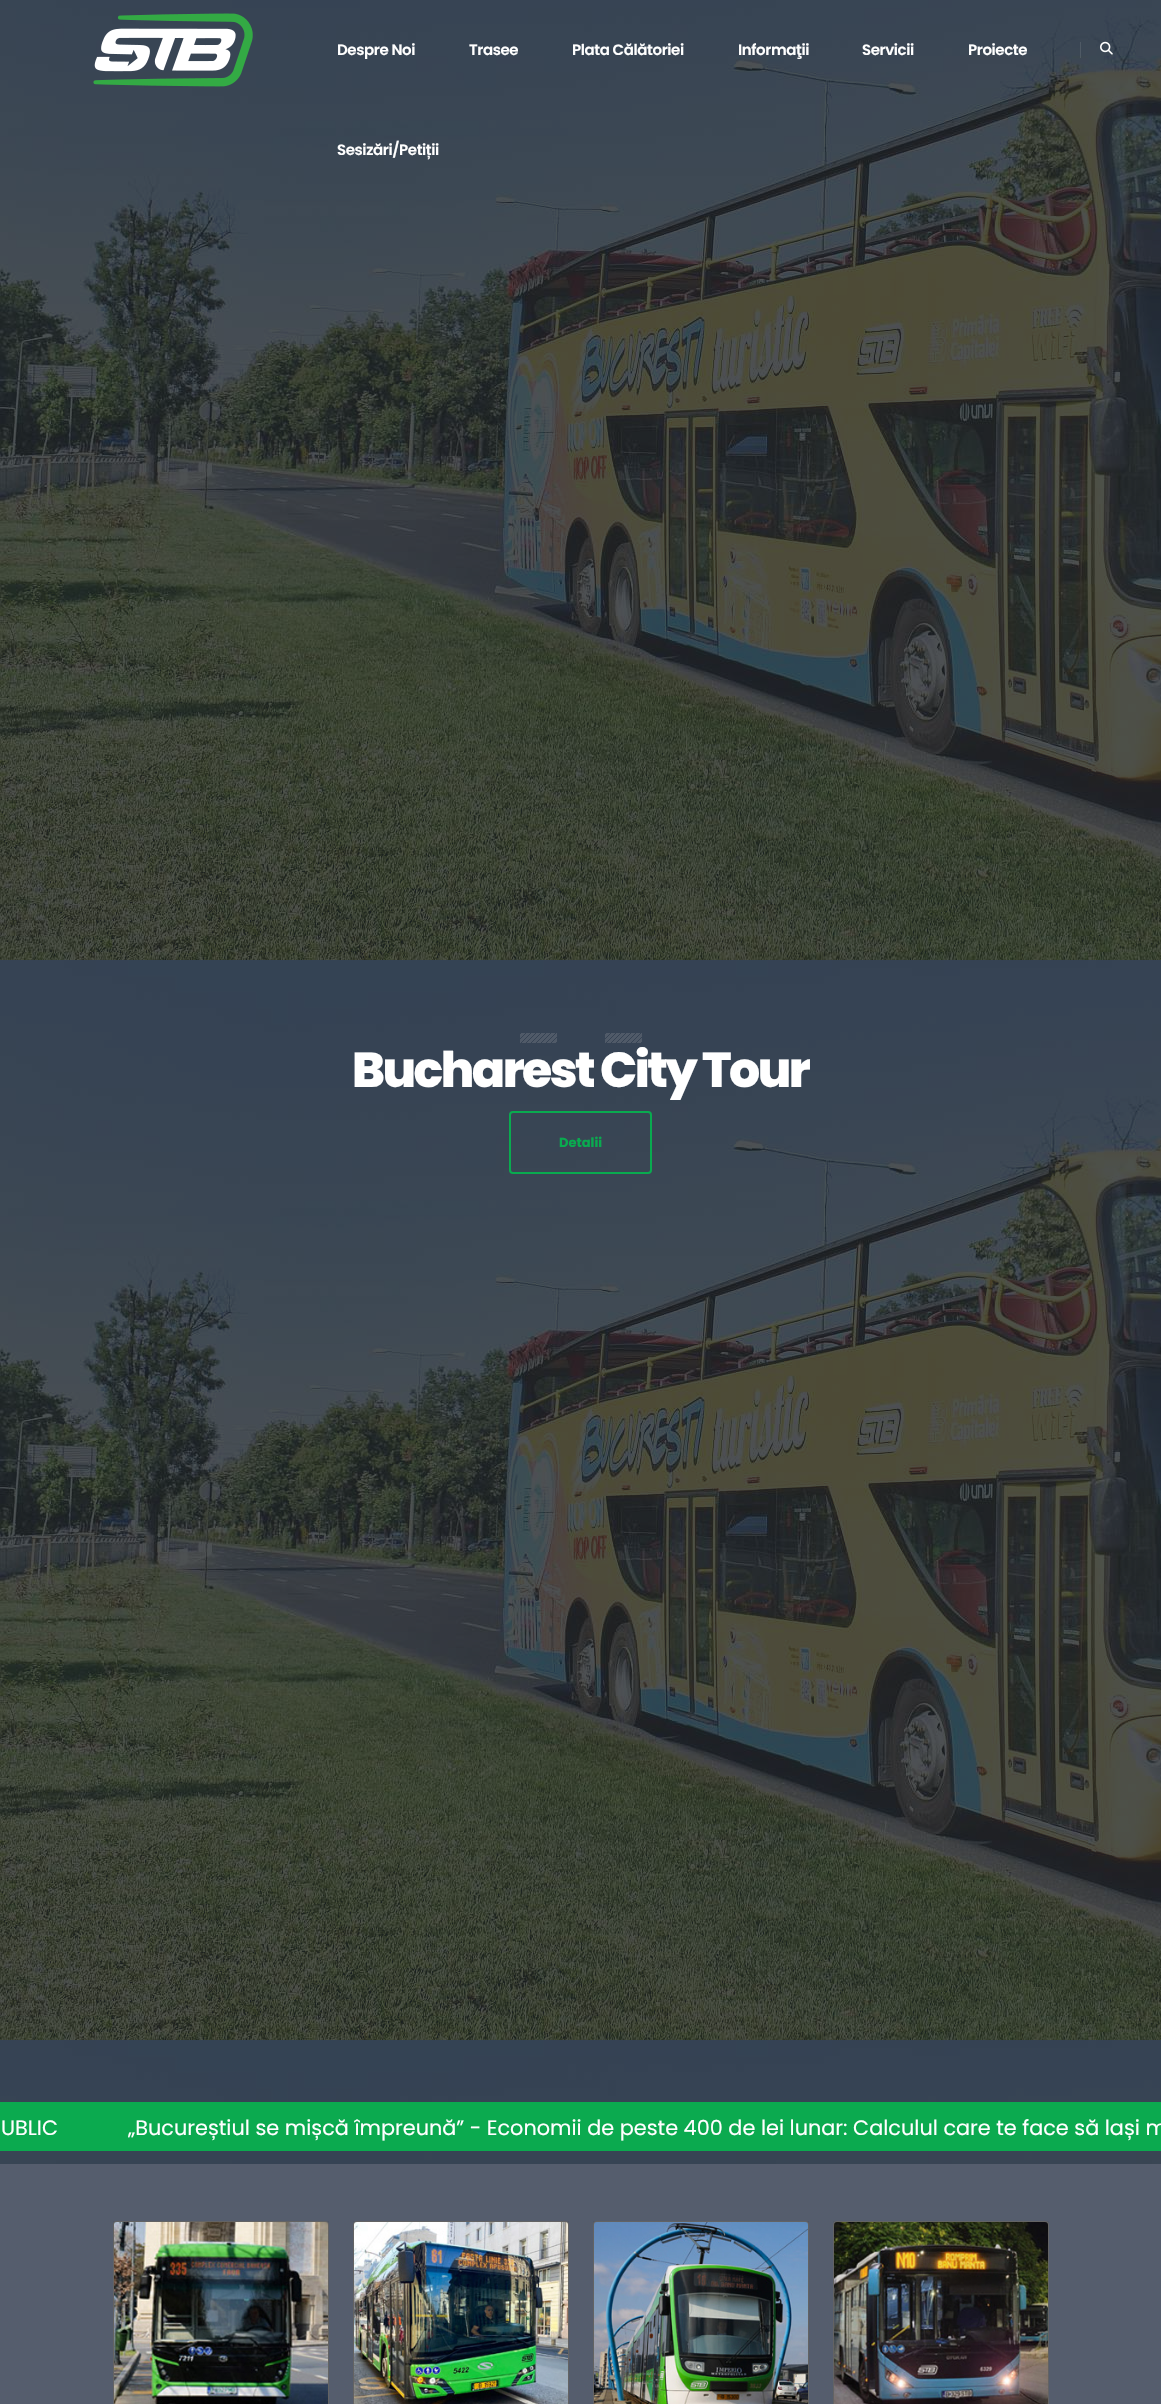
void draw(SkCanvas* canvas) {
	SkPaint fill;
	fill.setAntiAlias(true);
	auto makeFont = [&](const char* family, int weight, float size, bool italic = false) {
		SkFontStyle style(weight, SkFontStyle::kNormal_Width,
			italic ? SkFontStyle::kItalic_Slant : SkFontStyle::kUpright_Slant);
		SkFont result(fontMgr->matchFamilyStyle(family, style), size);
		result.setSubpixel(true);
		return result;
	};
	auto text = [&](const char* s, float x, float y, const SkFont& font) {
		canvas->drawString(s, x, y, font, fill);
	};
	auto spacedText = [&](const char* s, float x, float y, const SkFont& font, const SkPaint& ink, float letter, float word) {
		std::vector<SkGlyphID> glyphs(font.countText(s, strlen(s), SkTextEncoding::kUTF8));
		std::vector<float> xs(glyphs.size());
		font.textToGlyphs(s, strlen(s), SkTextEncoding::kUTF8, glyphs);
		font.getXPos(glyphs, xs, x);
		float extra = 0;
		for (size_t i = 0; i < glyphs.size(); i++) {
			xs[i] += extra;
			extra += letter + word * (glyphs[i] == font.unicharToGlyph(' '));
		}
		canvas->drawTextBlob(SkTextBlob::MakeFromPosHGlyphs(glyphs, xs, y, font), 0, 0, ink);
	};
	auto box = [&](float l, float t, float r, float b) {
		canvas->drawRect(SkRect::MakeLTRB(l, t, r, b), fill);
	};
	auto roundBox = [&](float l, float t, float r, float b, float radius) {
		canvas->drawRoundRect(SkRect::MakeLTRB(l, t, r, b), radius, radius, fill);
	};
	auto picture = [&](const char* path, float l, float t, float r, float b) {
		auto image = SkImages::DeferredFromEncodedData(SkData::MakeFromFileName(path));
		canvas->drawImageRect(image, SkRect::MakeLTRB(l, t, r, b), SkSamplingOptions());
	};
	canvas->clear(0xFF555D6D);
	picture("image2.png", 0, 0, 1161, 2164);
	picture("image0.png", 93, 13, 253, 87);
	fill.setColor(0x1AFFFFFF);
	box(1080, 42, 1081, 58);
	picture("image1.png", 1100, 41, 1113, 55);
	picture("image3.png", 520, 1033, 557, 1043);
	picture("image3.png", 605, 1033, 642, 1043);
	fill.setStyle(SkPaint::kStroke_Style);
	fill.setStrokeWidth(2);
	fill.setColor(0xFF09AB4F);
	canvas->drawRoundRect(SkRect::MakeLTRB(510, 1112, 651, 1173), 3, 3, fill);
	fill.setStyle(SkPaint::kFill_Style);
	fill.setColor(0xFA09AB4F);
	box(0, 2102, 1161, 2151);
	fill.setColor(0xFF696969);
	roundBox(113, 2221, 329, 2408, 4);
	fill.setStyle(SkPaint::kStroke_Style);
	fill.setStrokeWidth(1);
	fill.setColor(0x0F000000);
	canvas->drawRect(SkRect::MakeLTRB(113.5f, 2221.5f, 328.5f, 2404.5f), fill);
	picture("image4.png", 114, 2222, 328, 2404);
	fill.setStyle(SkPaint::kFill_Style);
	fill.setColor(0xFF696969);
	roundBox(353, 2221, 569, 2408, 4);
	fill.setStyle(SkPaint::kStroke_Style);
	fill.setColor(0x0F000000);
	canvas->drawRect(SkRect::MakeLTRB(353.5f, 2221.5f, 568.5f, 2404.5f), fill);
	picture("image5.png", 354, 2222, 568, 2404);
	fill.setStyle(SkPaint::kFill_Style);
	fill.setColor(0xFF696969);
	roundBox(593, 2221, 809, 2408, 4);
	fill.setStyle(SkPaint::kStroke_Style);
	fill.setColor(0x0F000000);
	canvas->drawRect(SkRect::MakeLTRB(593.5f, 2221.5f, 808.5f, 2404.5f), fill);
	picture("image6.png", 594, 2222, 808, 2404);
	fill.setStyle(SkPaint::kFill_Style);
	fill.setColor(0xFF696969);
	roundBox(833, 2221, 1049, 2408, 4);
	fill.setStyle(SkPaint::kStroke_Style);
	fill.setColor(0x0F000000);
	canvas->drawRect(SkRect::MakeLTRB(833.5f, 2221.5f, 1048.5f, 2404.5f), fill);
	picture("image7.png", 834, 2222, 1048, 2404);
	auto font1 = makeFont("Poppins", 600, 15);
	fill.setStyle(SkPaint::kFill_Style);
	fill.setColor(0xFFFFFFFF);
	spacedText("Despre Noi", 337, 55, font1, fill, -0.4f, 0);
	spacedText("Trasee", 469, 55, font1, fill, -0.4f, 0);
	spacedText("Plata Călătoriei", 572, 55, font1, fill, -0.4f, 0);
	spacedText("Informaţii", 738, 55, font1, fill, -0.4f, 0);
	spacedText("Servicii", 862, 55, font1, fill, -0.4f, 0);
	spacedText("Proiecte", 968, 55, font1, fill, -0.4f, 0);
	spacedText("Sesizări/Petiții", 337, 155, font1, fill, -0.4f, 0);
	auto font2 = makeFont("Poppins", 800, 49);
	spacedText("Bucharest City Tour", 352, 1087, font2, fill, -2.5f, 0);
	auto font3 = makeFont("Poppins", 700, 13);
	fill.setColor(0xFF09AB4F);
	text("Detalii", 559, 1147, font3);
	auto font4 = makeFont("Poppins", 400, 20.8f);
	fill.setColor(0xFFFFFFFF);
	text("UBLIC", 1, 2135, font4);
	text("„Bucureștiul se mișcă împreună” - Economii de peste 400 de lei lunar: Calculul care te face să lași m", 128, 2135, font4);
}
